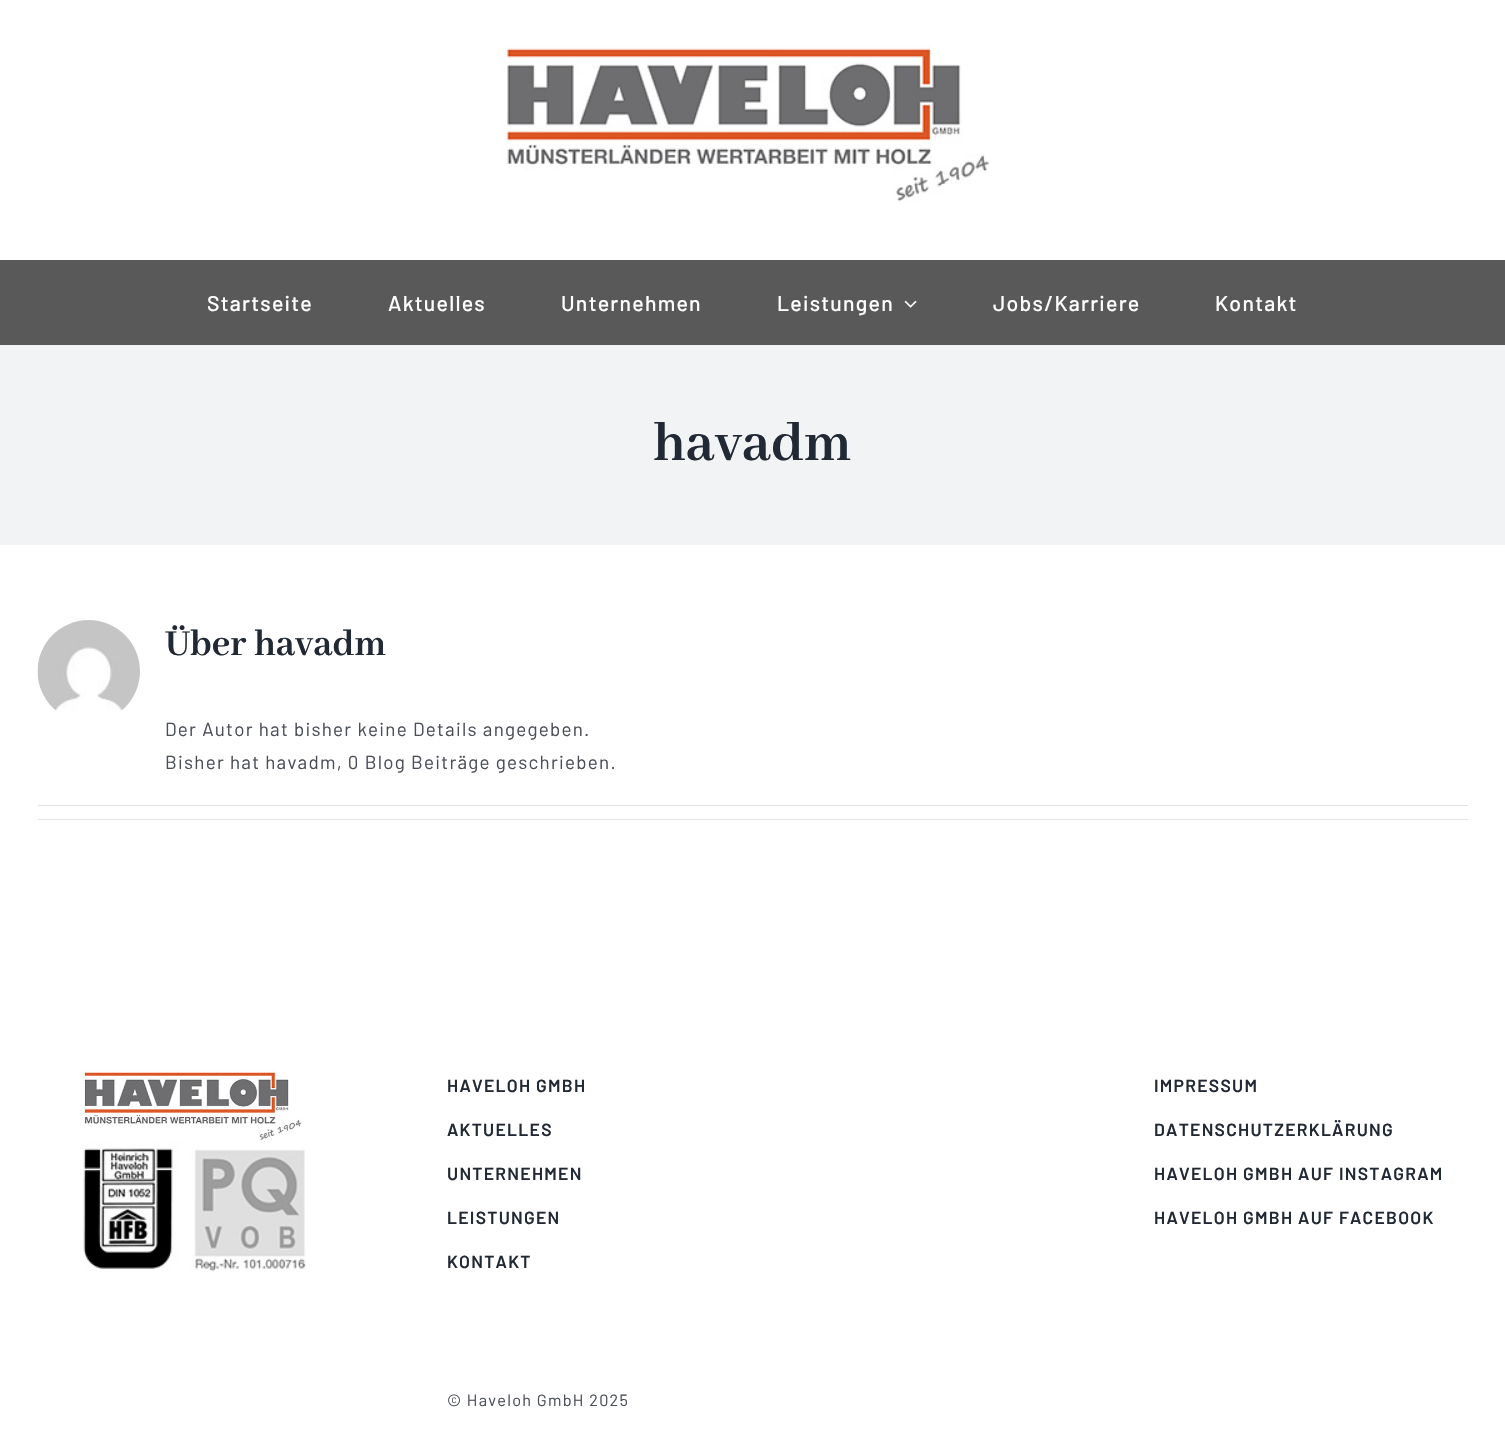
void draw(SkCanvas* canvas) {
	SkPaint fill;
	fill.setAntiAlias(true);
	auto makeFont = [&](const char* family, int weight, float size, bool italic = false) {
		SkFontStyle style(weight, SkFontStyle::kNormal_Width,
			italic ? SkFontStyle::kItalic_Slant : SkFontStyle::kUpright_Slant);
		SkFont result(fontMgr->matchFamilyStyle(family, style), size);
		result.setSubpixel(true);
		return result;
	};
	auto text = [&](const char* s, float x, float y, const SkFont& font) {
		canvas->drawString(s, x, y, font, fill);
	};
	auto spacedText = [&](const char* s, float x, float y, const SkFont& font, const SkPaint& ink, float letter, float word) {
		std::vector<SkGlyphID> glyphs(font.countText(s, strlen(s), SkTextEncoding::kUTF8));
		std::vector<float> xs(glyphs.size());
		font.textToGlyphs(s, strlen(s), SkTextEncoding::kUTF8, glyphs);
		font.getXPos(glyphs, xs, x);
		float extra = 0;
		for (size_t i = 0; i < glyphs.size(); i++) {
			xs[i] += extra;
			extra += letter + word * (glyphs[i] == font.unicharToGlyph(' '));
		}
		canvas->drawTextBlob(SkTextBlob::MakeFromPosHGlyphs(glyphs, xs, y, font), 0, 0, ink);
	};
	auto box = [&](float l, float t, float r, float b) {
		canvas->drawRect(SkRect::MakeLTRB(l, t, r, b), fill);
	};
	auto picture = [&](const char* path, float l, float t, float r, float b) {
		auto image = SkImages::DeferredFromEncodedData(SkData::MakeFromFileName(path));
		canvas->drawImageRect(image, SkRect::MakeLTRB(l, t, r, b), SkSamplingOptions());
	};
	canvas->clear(0xFFFFFFFF);
	picture("image0.png", 502, 44, 989, 202);
	fill.setColor(0xFF595959);
	box(0, 260, 1505, 345);
	picture("image1.png", 904, 300, 917, 308);
	fill.setColor(0xFFF2F3F5);
	box(0, 345, 1505, 545);
	picture("image2.png", 37, 620, 140, 711);
	fill.setColor(0xFFE2E2E2);
	box(38, 805, 1468, 806);
	box(38, 819, 1468, 820);
	picture("image3.png", 82, 1070, 302, 1140);
	picture("image4.png", 83, 1141, 306, 1272);
	auto font1 = makeFont("Barlow", 500, 21.25f);
	fill.setColor(0xFFFFFFFF);
	spacedText("Startseite", 207, 311, font1, fill, 1.25f, 0);
	spacedText("Aktuelles", 388, 311, font1, fill, 1.25f, 0);
	spacedText("Unternehmen", 561, 311, font1, fill, 1.25f, 0);
	spacedText("Leistungen", 777, 311, font1, fill, 1.25f, 0);
	spacedText("Jobs/Karriere", 993, 311, font1, fill, 1.25f, 0);
	spacedText("Kontakt", 1215, 311, font1, fill, 1.25f, 0);
	auto font2 = makeFont("Abhaya Libre", 700, 60);
	fill.setColor(0xFF212934);
	text("havadm", 653, 460, font2);
	auto font3 = makeFont("Abhaya Libre", 700, 40);
	text("Über havadm", 165, 655, font3);
	auto font4 = makeFont("Barlow", 400, 18.75f);
	fill.setColor(0xFF4A4E57);
	spacedText("Der Autor hat bisher keine Details angegeben.", 165, 736, font4, fill, 1.25f, 0);
	spacedText("Bisher hat havadm, 0 Blog Beiträge geschrieben.", 165, 769, font4, fill, 1.25f, 0);
	auto font5 = makeFont("Barlow", 600, 17.5f);
	fill.setColor(0xFF212934);
	spacedText("HAVELOH GMBH", 447, 1092, font5, fill, 1.25f, 0);
	spacedText("AKTUELLES", 447, 1136, font5, fill, 1.25f, 0);
	spacedText("UNTERNEHMEN", 447, 1180, font5, fill, 1.25f, 0);
	spacedText("LEISTUNGEN", 447, 1224, font5, fill, 1.25f, 0);
	spacedText("KONTAKT", 447, 1268, font5, fill, 1.25f, 0);
	spacedText("IMPRESSUM", 1154, 1092, font5, fill, 1.25f, 0);
	spacedText("DATENSCHUTZERKLÄRUNG", 1154, 1136, font5, fill, 1.25f, 0);
	spacedText("HAVELOH GMBH AUF INSTAGRAM", 1154, 1180, font5, fill, 1.25f, 0);
	spacedText("HAVELOH GMBH AUF FACEBOOK", 1154, 1224, font5, fill, 1.25f, 0);
	auto font6 = makeFont("Barlow", 400, 16.25f);
	fill.setColor(0xFF4A4E57);
	spacedText("© Haveloh GmbH 2025", 447, 1406, font6, fill, 1.25f, 0);
}
